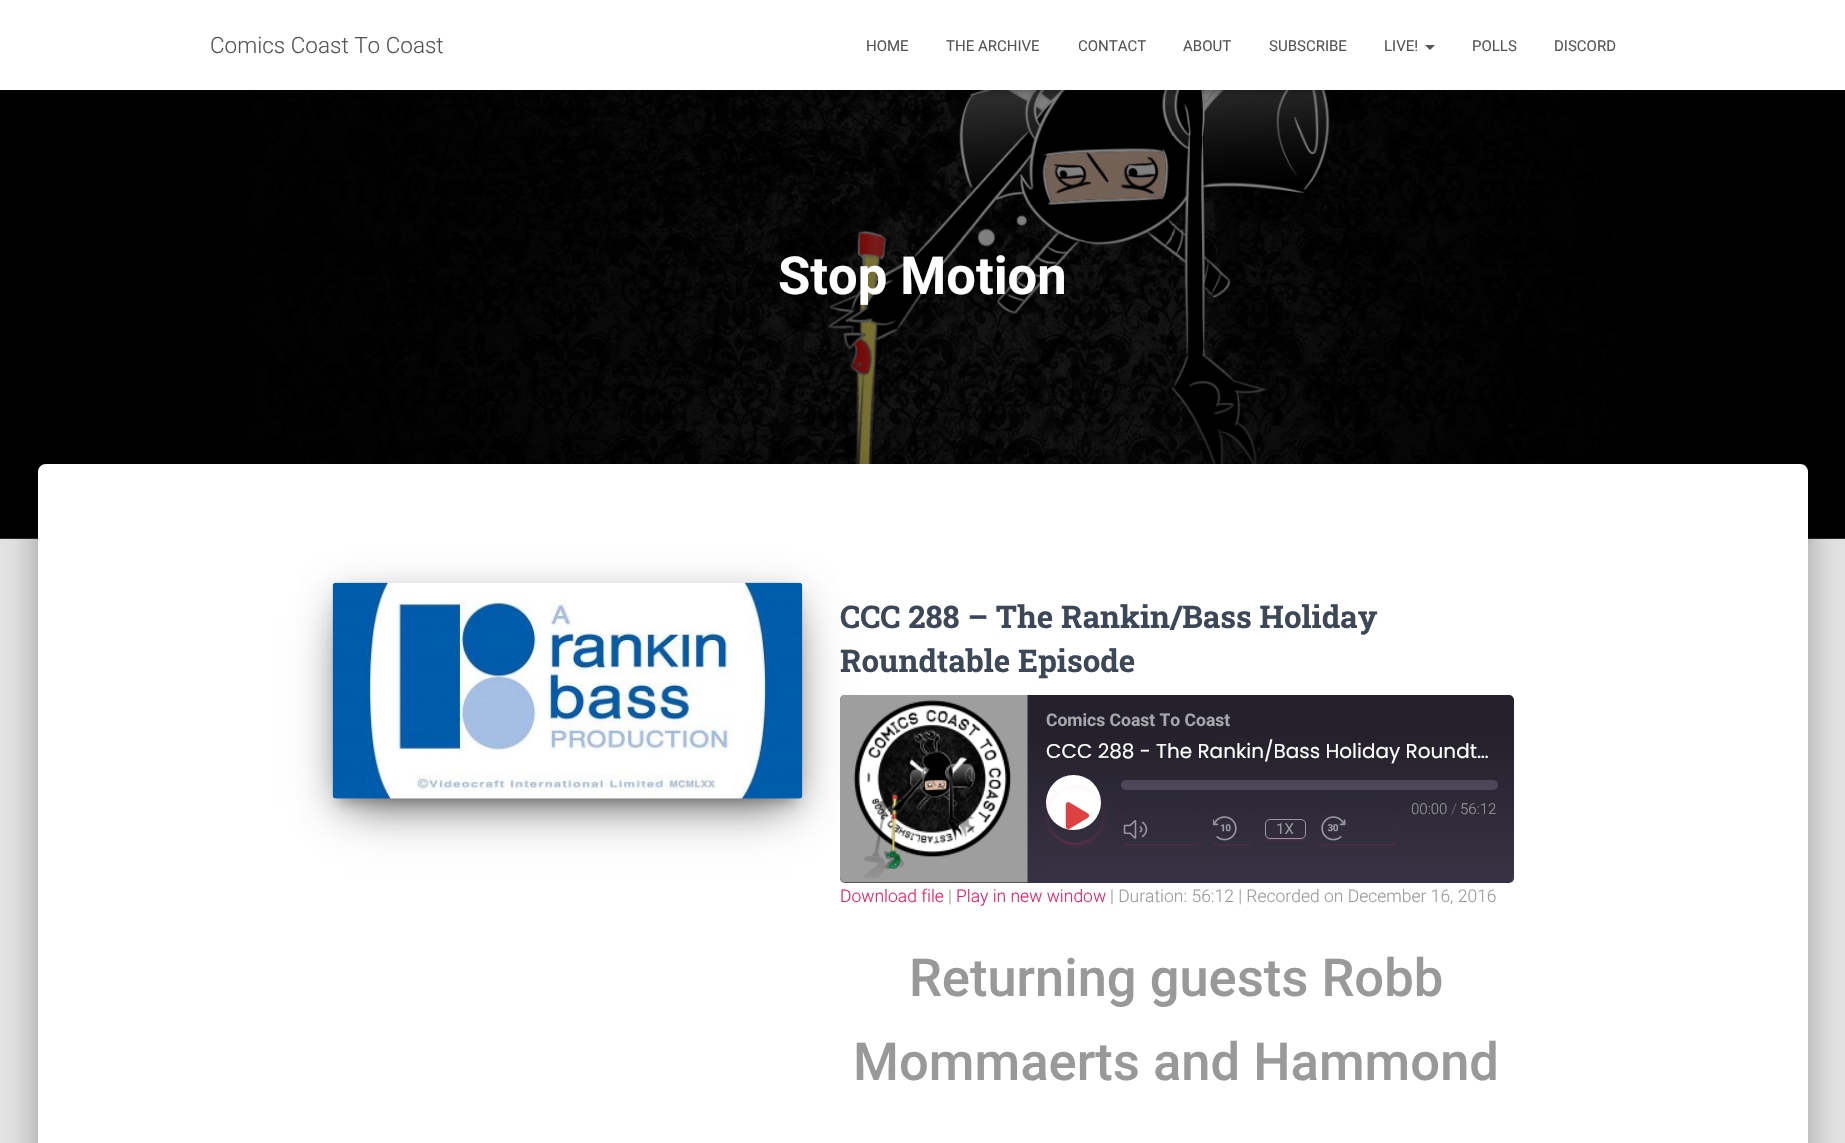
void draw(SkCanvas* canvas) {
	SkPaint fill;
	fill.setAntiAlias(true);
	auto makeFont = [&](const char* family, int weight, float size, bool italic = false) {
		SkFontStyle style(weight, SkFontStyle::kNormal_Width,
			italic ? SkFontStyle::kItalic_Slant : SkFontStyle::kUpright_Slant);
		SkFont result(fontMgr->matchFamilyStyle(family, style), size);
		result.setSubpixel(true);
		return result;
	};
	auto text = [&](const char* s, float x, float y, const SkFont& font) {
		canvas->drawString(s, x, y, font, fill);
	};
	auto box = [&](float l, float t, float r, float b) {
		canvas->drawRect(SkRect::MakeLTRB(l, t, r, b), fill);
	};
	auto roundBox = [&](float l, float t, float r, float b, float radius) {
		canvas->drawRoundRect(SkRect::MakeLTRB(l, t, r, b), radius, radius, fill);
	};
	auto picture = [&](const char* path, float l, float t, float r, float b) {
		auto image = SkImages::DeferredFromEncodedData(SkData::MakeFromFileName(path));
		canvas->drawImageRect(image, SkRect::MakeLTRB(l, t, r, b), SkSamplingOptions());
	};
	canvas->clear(0xFFE5E5E5);
	picture("image0.png", 0, 90, 1845, 539);
	fill.setColor(0x1A000000);
	fill.setMaskFilter(SkMaskFilter::MakeBlur(kNormal_SkBlurStyle, 3));
	canvas->drawRect(SkRect::MakeLTRB(3, 8, 1843, 93), fill);
	fill.setMaskFilter(nullptr);
	fill.setColor(0x1F000000);
	fill.setMaskFilter(SkMaskFilter::MakeBlur(kNormal_SkBlurStyle, 6));
	canvas->drawRect(SkRect::MakeLTRB(0, 1, 1845, 91), fill);
	fill.setMaskFilter(nullptr);
	fill.setColor(0x6B000000);
	fill.setMaskFilter(SkMaskFilter::MakeBlur(kNormal_SkBlurStyle, 6));
	canvas->drawRect(SkRect::MakeLTRB(8, 9, 1838, 84), fill);
	fill.setMaskFilter(nullptr);
	fill.setColor(0xFFFFFFFF);
	box(0, 0, 1845, 90);
	fill.setColor(0xFF555555);
	canvas->drawPath(SkPathBuilder().moveTo(1425, 45).lineTo(1435, 45).lineTo(1430, 50).close().detach(), fill);
	fill.setColor(0x33000000);
	fill.setMaskFilter(SkMaskFilter::MakeBlur(kNormal_SkBlurStyle, 6));
	canvas->drawRoundRect(SkRect::MakeLTRB(44, 480, 1801, 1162), 1, 1, fill);
	fill.setMaskFilter(nullptr);
	fill.setColor(0x1F000000);
	fill.setMaskFilter(SkMaskFilter::MakeBlur(kNormal_SkBlurStyle, 19));
	canvas->drawRoundRect(SkRect::MakeLTRB(31, 465, 1814, 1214), 14, 14, fill);
	fill.setMaskFilter(nullptr);
	fill.setColor(0x24000000);
	fill.setMaskFilter(SkMaskFilter::MakeBlur(kNormal_SkBlurStyle, 15));
	canvas->drawRoundRect(SkRect::MakeLTRB(35, 481, 1810, 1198), 10, 10, fill);
	fill.setMaskFilter(nullptr);
	fill.setColor(0xFFFFFFFF);
	canvas->drawPath(SkPathBuilder().moveTo(46, 464).lineTo(1800, 464).cubicTo(1804.5f, 464, 1808, 467.5f, 1808, 472).lineTo(1808, 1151).lineTo(38, 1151).lineTo(38, 472).cubicTo(38, 467.5f, 41.5f, 464, 46, 464).close().detach(), fill);
	fill.setColor(0x33000000);
	fill.setMaskFilter(SkMaskFilter::MakeBlur(kNormal_SkBlurStyle, 6));
	canvas->drawRect(SkRect::MakeLTRB(339, 599, 796, 803), fill);
	fill.setMaskFilter(nullptr);
	fill.setColor(0x1F000000);
	fill.setMaskFilter(SkMaskFilter::MakeBlur(kNormal_SkBlurStyle, 15.5f));
	canvas->drawRoundRect(SkRect::MakeLTRB(333, 588, 803, 804), 4, 4, fill);
	fill.setMaskFilter(nullptr);
	fill.setColor(0x8F000000);
	fill.setMaskFilter(SkMaskFilter::MakeBlur(kNormal_SkBlurStyle, 24));
	canvas->drawRect(SkRect::MakeLTRB(348, 618, 788, 804), fill);
	fill.setMaskFilter(nullptr);
	picture("image1.png", 332, 582, 803, 799);
	{
		const SkColor colors[] = {0xFF383344, 0xFF24212C};
		const float stops[] = {0.01f, 0.78f};
		const SkPoint ends[] = {{1177, 884}, {1176, 693}};
		fill.setShader(SkGradientShader::MakeLinear(ends, colors, stops, 2, SkTileMode::kClamp));
		fill.setAlpha(255);
	}
	roundBox(840, 695, 1514, 883, 5);
	picture("image2.png", 840, 695, 1028, 883);
	fill.setShader(nullptr);
	fill.setColor(0xFFFFFFFF);
	canvas->drawCircle(1073.5f, 802.5f, 27.5f, fill);
	canvas->save();
	canvas->clipPath(SkPathBuilder(SkPathFillType::kEvenOdd).moveTo(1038, 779).lineTo(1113, 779).lineTo(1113, 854).lineTo(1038, 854).close().moveTo(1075.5f, 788).cubicTo(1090.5f, 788, 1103, 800.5f, 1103, 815.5f).cubicTo(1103, 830.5f, 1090.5f, 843, 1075.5f, 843).cubicTo(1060.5f, 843, 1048, 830.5f, 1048, 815.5f).cubicTo(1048, 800.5f, 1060.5f, 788, 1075.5f, 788).close().detach(), true);
	fill.setColor(0x1FE91E63);
	fill.setMaskFilter(SkMaskFilter::MakeBlur(kNormal_SkBlurStyle, 3));
	canvas->drawRoundRect(SkRect::MakeLTRB(1048, 789, 1103, 844), 27.5f, 27.5f, fill);
	fill.setMaskFilter(nullptr);
	canvas->restore();
	canvas->save();
	canvas->clipPath(SkPathBuilder(SkPathFillType::kEvenOdd).moveTo(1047, 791).lineTo(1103, 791).lineTo(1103, 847).lineTo(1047, 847).close().moveTo(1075.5f, 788).cubicTo(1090.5f, 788, 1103, 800.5f, 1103, 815.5f).cubicTo(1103, 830.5f, 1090.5f, 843, 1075.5f, 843).cubicTo(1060.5f, 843, 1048, 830.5f, 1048, 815.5f).cubicTo(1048, 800.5f, 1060.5f, 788, 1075.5f, 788).close().detach(), true);
	fill.setColor(0x33E91E63);
	fill.setMaskFilter(SkMaskFilter::MakeBlur(kNormal_SkBlurStyle, 0.5f));
	canvas->drawRoundRect(SkRect::MakeLTRB(1050, 794, 1100, 844), 25, 25, fill);
	fill.setMaskFilter(nullptr);
	canvas->restore();
	canvas->save();
	canvas->clipPath(SkPathBuilder(SkPathFillType::kEvenOdd).moveTo(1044, 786).lineTo(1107, 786).lineTo(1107, 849).lineTo(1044, 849).close().moveTo(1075.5f, 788).cubicTo(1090.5f, 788, 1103, 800.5f, 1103, 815.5f).cubicTo(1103, 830.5f, 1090.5f, 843, 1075.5f, 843).cubicTo(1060.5f, 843, 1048, 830.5f, 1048, 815.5f).cubicTo(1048, 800.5f, 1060.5f, 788, 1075.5f, 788).close().detach(), true);
	fill.setColor(0x24E91E63);
	fill.setMaskFilter(SkMaskFilter::MakeBlur(kNormal_SkBlurStyle, 1));
	canvas->drawRoundRect(SkRect::MakeLTRB(1048, 790, 1103, 845), 27.5f, 27.5f, fill);
	fill.setMaskFilter(nullptr);
	canvas->restore();
	picture("image3.png", 1065, 802, 1090, 830);
	fill.setColor(0xFF4C4659);
	roundBox(1121, 780, 1498, 790, 5);
	canvas->save();
	canvas->clipPath(SkPathBuilder(SkPathFillType::kEvenOdd).moveTo(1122, 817).lineTo(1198, 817).lineTo(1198, 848).lineTo(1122, 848).close().moveTo(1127, 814).lineTo(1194, 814).cubicTo(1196, 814, 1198, 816, 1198, 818).lineTo(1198, 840).cubicTo(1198, 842, 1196, 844, 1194, 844).lineTo(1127, 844).cubicTo(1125, 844, 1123, 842, 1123, 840).lineTo(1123, 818).cubicTo(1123, 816, 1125, 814, 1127, 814).close().detach(), true);
	fill.setColor(0x338E2651);
	fill.setMaskFilter(SkMaskFilter::MakeBlur(kNormal_SkBlurStyle, 0.5f));
	canvas->drawRoundRect(SkRect::MakeLTRB(1125, 820, 1195, 845), 1, 1, fill);
	fill.setMaskFilter(nullptr);
	canvas->restore();
	canvas->save();
	canvas->clipPath(SkPathBuilder(SkPathFillType::kEvenOdd).moveTo(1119, 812).lineTo(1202, 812).lineTo(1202, 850).lineTo(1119, 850).close().moveTo(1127, 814).lineTo(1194, 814).cubicTo(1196, 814, 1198, 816, 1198, 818).lineTo(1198, 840).cubicTo(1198, 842, 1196, 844, 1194, 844).lineTo(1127, 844).cubicTo(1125, 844, 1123, 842, 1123, 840).lineTo(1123, 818).cubicTo(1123, 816, 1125, 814, 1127, 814).close().detach(), true);
	fill.setColor(0x12E91E63);
	fill.setMaskFilter(SkMaskFilter::MakeBlur(kNormal_SkBlurStyle, 1));
	canvas->drawRoundRect(SkRect::MakeLTRB(1123, 816, 1198, 846), 4, 4, fill);
	fill.setMaskFilter(nullptr);
	canvas->restore();
	picture("image4.png", 1123, 820, 1148, 839);
	canvas->save();
	canvas->clipPath(SkPathBuilder(SkPathFillType::kEvenOdd).moveTo(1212, 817).lineTo(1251, 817).lineTo(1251, 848).lineTo(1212, 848).close().moveTo(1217, 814).lineTo(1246, 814).cubicTo(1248, 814, 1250, 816, 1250, 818).lineTo(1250, 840).cubicTo(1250, 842, 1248, 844, 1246, 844).lineTo(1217, 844).cubicTo(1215, 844, 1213, 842, 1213, 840).lineTo(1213, 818).cubicTo(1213, 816, 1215, 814, 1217, 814).close().detach(), true);
	fill.setColor(0x338E2651);
	fill.setMaskFilter(SkMaskFilter::MakeBlur(kNormal_SkBlurStyle, 0.5f));
	canvas->drawRoundRect(SkRect::MakeLTRB(1215, 820, 1248, 845), 1, 1, fill);
	fill.setMaskFilter(nullptr);
	canvas->restore();
	canvas->save();
	canvas->clipPath(SkPathBuilder(SkPathFillType::kEvenOdd).moveTo(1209, 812).lineTo(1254, 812).lineTo(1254, 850).lineTo(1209, 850).close().moveTo(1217, 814).lineTo(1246, 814).cubicTo(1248, 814, 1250, 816, 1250, 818).lineTo(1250, 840).cubicTo(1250, 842, 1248, 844, 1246, 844).lineTo(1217, 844).cubicTo(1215, 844, 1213, 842, 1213, 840).lineTo(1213, 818).cubicTo(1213, 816, 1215, 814, 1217, 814).close().detach(), true);
	fill.setColor(0x12E91E63);
	fill.setMaskFilter(SkMaskFilter::MakeBlur(kNormal_SkBlurStyle, 1));
	canvas->drawRoundRect(SkRect::MakeLTRB(1213, 816, 1250, 846), 4, 4, fill);
	fill.setMaskFilter(nullptr);
	canvas->restore();
	picture("image5.png", 1213, 816, 1237, 841);
	canvas->save();
	canvas->clipPath(SkPathBuilder(SkPathFillType::kEvenOdd).moveTo(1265, 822).lineTo(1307, 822).lineTo(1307, 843).lineTo(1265, 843).close().moveTo(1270, 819).lineTo(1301, 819).cubicTo(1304, 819, 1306, 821, 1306, 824).lineTo(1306, 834).cubicTo(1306, 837, 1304, 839, 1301, 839).lineTo(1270, 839).cubicTo(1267, 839, 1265, 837, 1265, 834).lineTo(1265, 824).cubicTo(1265, 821, 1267, 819, 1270, 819).close().detach(), true);
	fill.setColor(0x338E2650);
	fill.setMaskFilter(SkMaskFilter::MakeBlur(kNormal_SkBlurStyle, 0.5f));
	canvas->drawRoundRect(SkRect::MakeLTRB(1268, 825, 1304, 840), 2.5f, 2.5f, fill);
	fill.setMaskFilter(nullptr);
	canvas->restore();
	canvas->save();
	canvas->clipPath(SkPathBuilder(SkPathFillType::kEvenOdd).moveTo(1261, 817).lineTo(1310, 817).lineTo(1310, 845).lineTo(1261, 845).close().moveTo(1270, 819).lineTo(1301, 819).cubicTo(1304, 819, 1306, 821, 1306, 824).lineTo(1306, 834).cubicTo(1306, 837, 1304, 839, 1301, 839).lineTo(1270, 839).cubicTo(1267, 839, 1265, 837, 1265, 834).lineTo(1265, 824).cubicTo(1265, 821, 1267, 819, 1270, 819).close().detach(), true);
	fill.setColor(0x12E91E63);
	fill.setMaskFilter(SkMaskFilter::MakeBlur(kNormal_SkBlurStyle, 1));
	canvas->drawRoundRect(SkRect::MakeLTRB(1265, 821, 1306, 841), 5, 5, fill);
	fill.setMaskFilter(nullptr);
	canvas->restore();
	fill.setStyle(SkPaint::kStroke_Style);
	fill.setStrokeWidth(1);
	fill.setColor(0x80FFFFFF);
	canvas->drawRoundRect(SkRect::MakeLTRB(1265.5f, 819.5f, 1305.5f, 838.5f), 4.5f, 4.5f, fill);
	canvas->save();
	canvas->clipPath(SkPathBuilder(SkPathFillType::kEvenOdd).moveTo(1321, 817).lineTo(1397, 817).lineTo(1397, 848).lineTo(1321, 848).close().moveTo(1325, 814).lineTo(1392, 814).cubicTo(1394, 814, 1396, 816, 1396, 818).lineTo(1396, 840).cubicTo(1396, 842, 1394, 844, 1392, 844).lineTo(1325, 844).cubicTo(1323, 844, 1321, 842, 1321, 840).lineTo(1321, 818).cubicTo(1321, 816, 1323, 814, 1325, 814).close().detach(), true);
	fill.setStyle(SkPaint::kFill_Style);
	fill.setColor(0x338E2651);
	fill.setMaskFilter(SkMaskFilter::MakeBlur(kNormal_SkBlurStyle, 0.5f));
	canvas->drawRoundRect(SkRect::MakeLTRB(1324, 820, 1394, 845), 1, 1, fill);
	fill.setMaskFilter(nullptr);
	canvas->restore();
	canvas->save();
	canvas->clipPath(SkPathBuilder(SkPathFillType::kEvenOdd).moveTo(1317, 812).lineTo(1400, 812).lineTo(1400, 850).lineTo(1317, 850).close().moveTo(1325, 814).lineTo(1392, 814).cubicTo(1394, 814, 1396, 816, 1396, 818).lineTo(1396, 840).cubicTo(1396, 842, 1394, 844, 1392, 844).lineTo(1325, 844).cubicTo(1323, 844, 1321, 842, 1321, 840).lineTo(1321, 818).cubicTo(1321, 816, 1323, 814, 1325, 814).close().detach(), true);
	fill.setColor(0x12E91E63);
	fill.setMaskFilter(SkMaskFilter::MakeBlur(kNormal_SkBlurStyle, 1));
	canvas->drawRoundRect(SkRect::MakeLTRB(1321, 816, 1396, 846), 4, 4, fill);
	fill.setMaskFilter(nullptr);
	canvas->restore();
	picture("image6.png", 1321, 816, 1346, 841);
	auto font1 = makeFont("Roboto", 300, 22.5f);
	fill.setColor(0xFF555555);
	text("Comics Coast To Coast", 210, 53, font1);
	auto font2 = makeFont("Roboto", 400, 15);
	text("HOME", 866, 51, font2);
	text("THE ARCHIVE", 946, 51, font2);
	text("CONTACT", 1078, 51, font2);
	text("ABOUT", 1183, 51, font2);
	text("SUBSCRIBE", 1269, 51, font2);
	text("LIVE!", 1384, 51, font2);
	text("POLLS", 1472, 51, font2);
	text("DISCORD", 1554, 51, font2);
	auto font3 = makeFont("Roboto", 700, 52.5f);
	fill.setColor(0xFFFFFFFF);
	text("Stop Motion", 778, 294, font3);
	auto font4 = makeFont("Roboto Slab", 700, 31.25f);
	fill.setColor(0xFF3C4858);
	text("CCC 288 – The Rankin/Bass Holiday", 840, 628, font4);
	text("Roundtable Episode", 840, 672, font4);
	auto font5 = makeFont("Roboto", 700, 17.5f);
	fill.setColor(0xFFA7A6AB);
	text("Comics Coast To Coast", 1046, 726, font5);
	auto font6 = makeFont("Poppins", 400, 20);
	fill.setColor(0xFFFFFFFF);
	text("CCC 288 - The Rankin/Bass Holiday Roundt…", 1046, 758, font6);
	auto font7 = makeFont("Roboto", 300, 15);
	fill.setColor(0xFF999999);
	text("00:00", 1411, 814, font7);
	fill.setColor(0xFF6D6A74);
	text("/", 1451, 814, font7);
	fill.setColor(0xFF999999);
	text("56:12", 1460, 814, font7);
	text("1X", 1276, 834, font2);
	auto font8 = makeFont("Roboto", 300, 17.5f);
	fill.setColor(0xFFE91E63);
	text("Download file", 840, 902, font8);
	fill.setColor(0xFF999999);
	text("|", 948, 902, font8);
	fill.setColor(0xFFE91E63);
	text("Play in new window", 956, 902, font8);
	fill.setColor(0xFF999999);
	text("| Duration: 56:12 | Recorded on December 16, 2016", 1110, 902, font8);
	auto font9 = makeFont("Roboto", 500, 52.5f);
	text("Returning guests Robb", 909, 996, font9);
	text("Mommaerts and Hammond", 853, 1080, font9);
}
